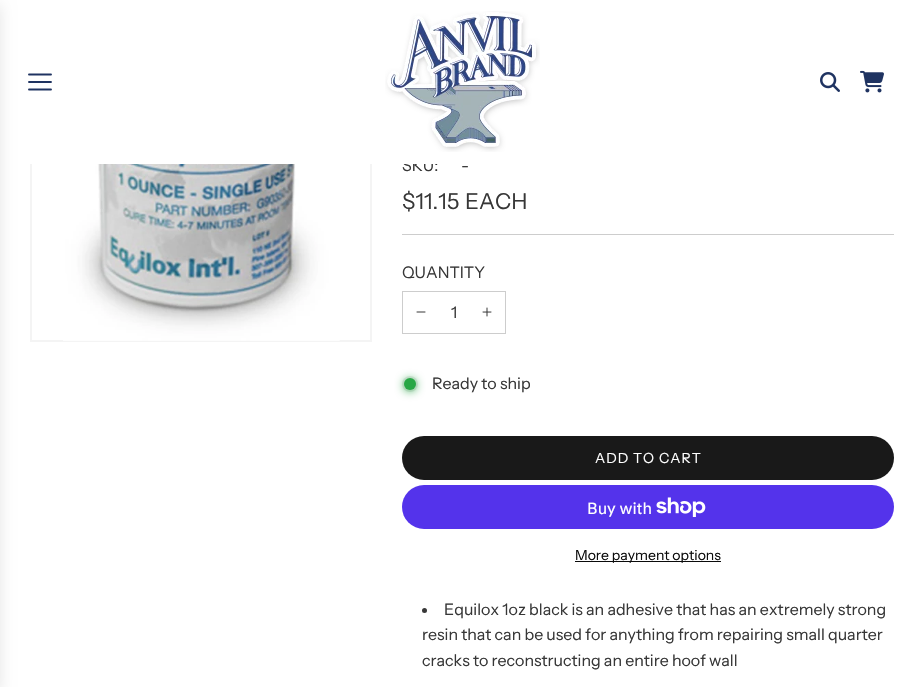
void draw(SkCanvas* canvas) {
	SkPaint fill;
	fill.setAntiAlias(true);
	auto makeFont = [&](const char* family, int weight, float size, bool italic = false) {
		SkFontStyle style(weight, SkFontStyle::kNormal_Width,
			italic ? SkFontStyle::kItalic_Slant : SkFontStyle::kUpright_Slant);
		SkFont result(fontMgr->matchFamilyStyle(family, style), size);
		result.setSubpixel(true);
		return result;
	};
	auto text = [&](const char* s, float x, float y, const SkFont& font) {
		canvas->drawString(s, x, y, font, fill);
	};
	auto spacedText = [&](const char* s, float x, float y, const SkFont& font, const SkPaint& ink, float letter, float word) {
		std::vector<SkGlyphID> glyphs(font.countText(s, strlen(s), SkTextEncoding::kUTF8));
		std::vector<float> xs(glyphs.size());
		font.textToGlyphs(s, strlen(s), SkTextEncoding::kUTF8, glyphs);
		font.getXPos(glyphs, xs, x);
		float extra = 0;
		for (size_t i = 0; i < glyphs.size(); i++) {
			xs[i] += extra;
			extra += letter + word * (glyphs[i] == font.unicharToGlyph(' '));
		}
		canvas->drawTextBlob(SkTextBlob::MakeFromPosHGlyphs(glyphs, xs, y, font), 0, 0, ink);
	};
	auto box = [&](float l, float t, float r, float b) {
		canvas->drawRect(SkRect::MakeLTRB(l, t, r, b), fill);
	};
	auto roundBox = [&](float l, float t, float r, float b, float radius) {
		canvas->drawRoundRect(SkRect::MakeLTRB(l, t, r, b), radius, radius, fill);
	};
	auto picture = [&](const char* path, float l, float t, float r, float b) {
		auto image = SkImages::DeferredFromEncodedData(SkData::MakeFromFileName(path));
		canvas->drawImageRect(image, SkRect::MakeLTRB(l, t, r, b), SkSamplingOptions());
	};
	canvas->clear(0xFFFFFFFF);
	fill.setColor(0x1A000000);
	fill.setMaskFilter(SkMaskFilter::MakeBlur(kNormal_SkBlurStyle, 7.5f));
	canvas->drawRect(SkRect::MakeLTRB(-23, 5, 0, 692), fill);
	fill.setMaskFilter(nullptr);
	picture("image1.png", 820, 72, 840, 92);
	picture("image2.png", 860, 70, 884, 93);
	fill.setStyle(SkPaint::kStroke_Style);
	fill.setStrokeWidth(2);
	fill.setColor(0xFFF4F4F4);
	canvas->drawRect(SkRect::MakeLTRB(31, -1, 371, 341), fill);
	picture("image3.png", 63, 164, 340, 341);
	fill.setStyle(SkPaint::kFill_Style);
	fill.setColor(0xFFCDCDCD);
	box(402, 234, 894, 235);
	fill.setStyle(SkPaint::kStroke_Style);
	fill.setStrokeWidth(1);
	canvas->drawRect(SkRect::MakeLTRB(402.5f, 291.5f, 505.5f, 333.5f), fill);
	fill.setStrokeCap(SkPaint::kRound_Cap);
	fill.setStrokeJoin(SkPaint::kRound_Join);
	fill.setColor(0xFF373737);
	canvas->drawPath(SkPathBuilder().moveTo(417, 312).lineTo(425, 312).detach(), fill);
	picture("image4.png", 482, 307, 492, 317);
	fill.setStyle(SkPaint::kFill_Style);
	fill.setColor(0xFFEBEBEB);
	canvas->drawCircle(410, 384, 8, fill);
	fill.setColor(0xFF28A745);
	fill.setMaskFilter(SkMaskFilter::MakeBlur(kNormal_SkBlurStyle, 5));
	canvas->drawRoundRect(SkRect::MakeLTRB(404, 379, 416, 391), 6, 6, fill);
	fill.setMaskFilter(nullptr);
	canvas->drawCircle(410, 384, 6, fill);
	fill.setColor(0xFF191919);
	roundBox(402, 436, 894, 480, 22);
	fill.setColor(0xFF5433EB);
	roundBox(402, 485, 894, 529, 22);
	picture("image5.png", 656, 497, 706, 517);
	fill.setColor(0xFF0A0A0A);
	box(575, 561, 721, 562);
	fill.setColor(0xFF373737);
	canvas->drawCircle(424.5f, 610.5f, 2.5f, fill);
	auto font1 = makeFont("Instrument Sans", 400, 16);
	text("SKU:", 402, 171, font1);
	fill.setColor(0xFFFFFFFF);
	box(30, 0, 438, 164);
	fill.setStyle(SkPaint::kStroke_Style);
	fill.setStrokeWidth(1.9f);
	fill.setColor(0xFF1F3361);
	canvas->drawPath(SkPathBuilder().moveTo(29, 74.5f).lineTo(51, 74.5f).moveTo(29, 82).lineTo(51, 82).moveTo(29, 89.5f).lineTo(51, 89.5f).detach(), fill);
	picture("image0.png", 385, 11, 540, 152);
	fill.setStyle(SkPaint::kFill_Style);
	fill.setColor(0xFF373737);
	text("-", 461, 171, font1);
	auto font2 = makeFont("Instrument Sans", 400, 22);
	text("$11.15", 402, 209, font2);
	text("EACH", 465, 209, font2);
	text("QUANTITY", 402, 278, font1);
	text("1", 451, 318, font1);
	text("Ready to ship", 432, 389, font1);
	auto font3 = makeFont("Instrument Sans", 400, 14);
	fill.setColor(0xFFFFFFFF);
	spacedText("ADD TO CART", 595, 463, font3, fill, 1, 0);
	auto font4 = makeFont("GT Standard", 400, 16);
	text("Buy with", 587, 514, font4);
	fill.setColor(0xFF0A0A0A);
	text("More payment options", 575, 560, font3);
	fill.setColor(0xFF373737);
	text("Equilox 1oz black is an adhesive that has an extremely strong", 444, 615, font1);
	text("resin that can be used for anything from repairing small quarter", 422, 640, font1);
	text("cracks to reconstructing an entire hoof wall", 422, 666, font1);
}
